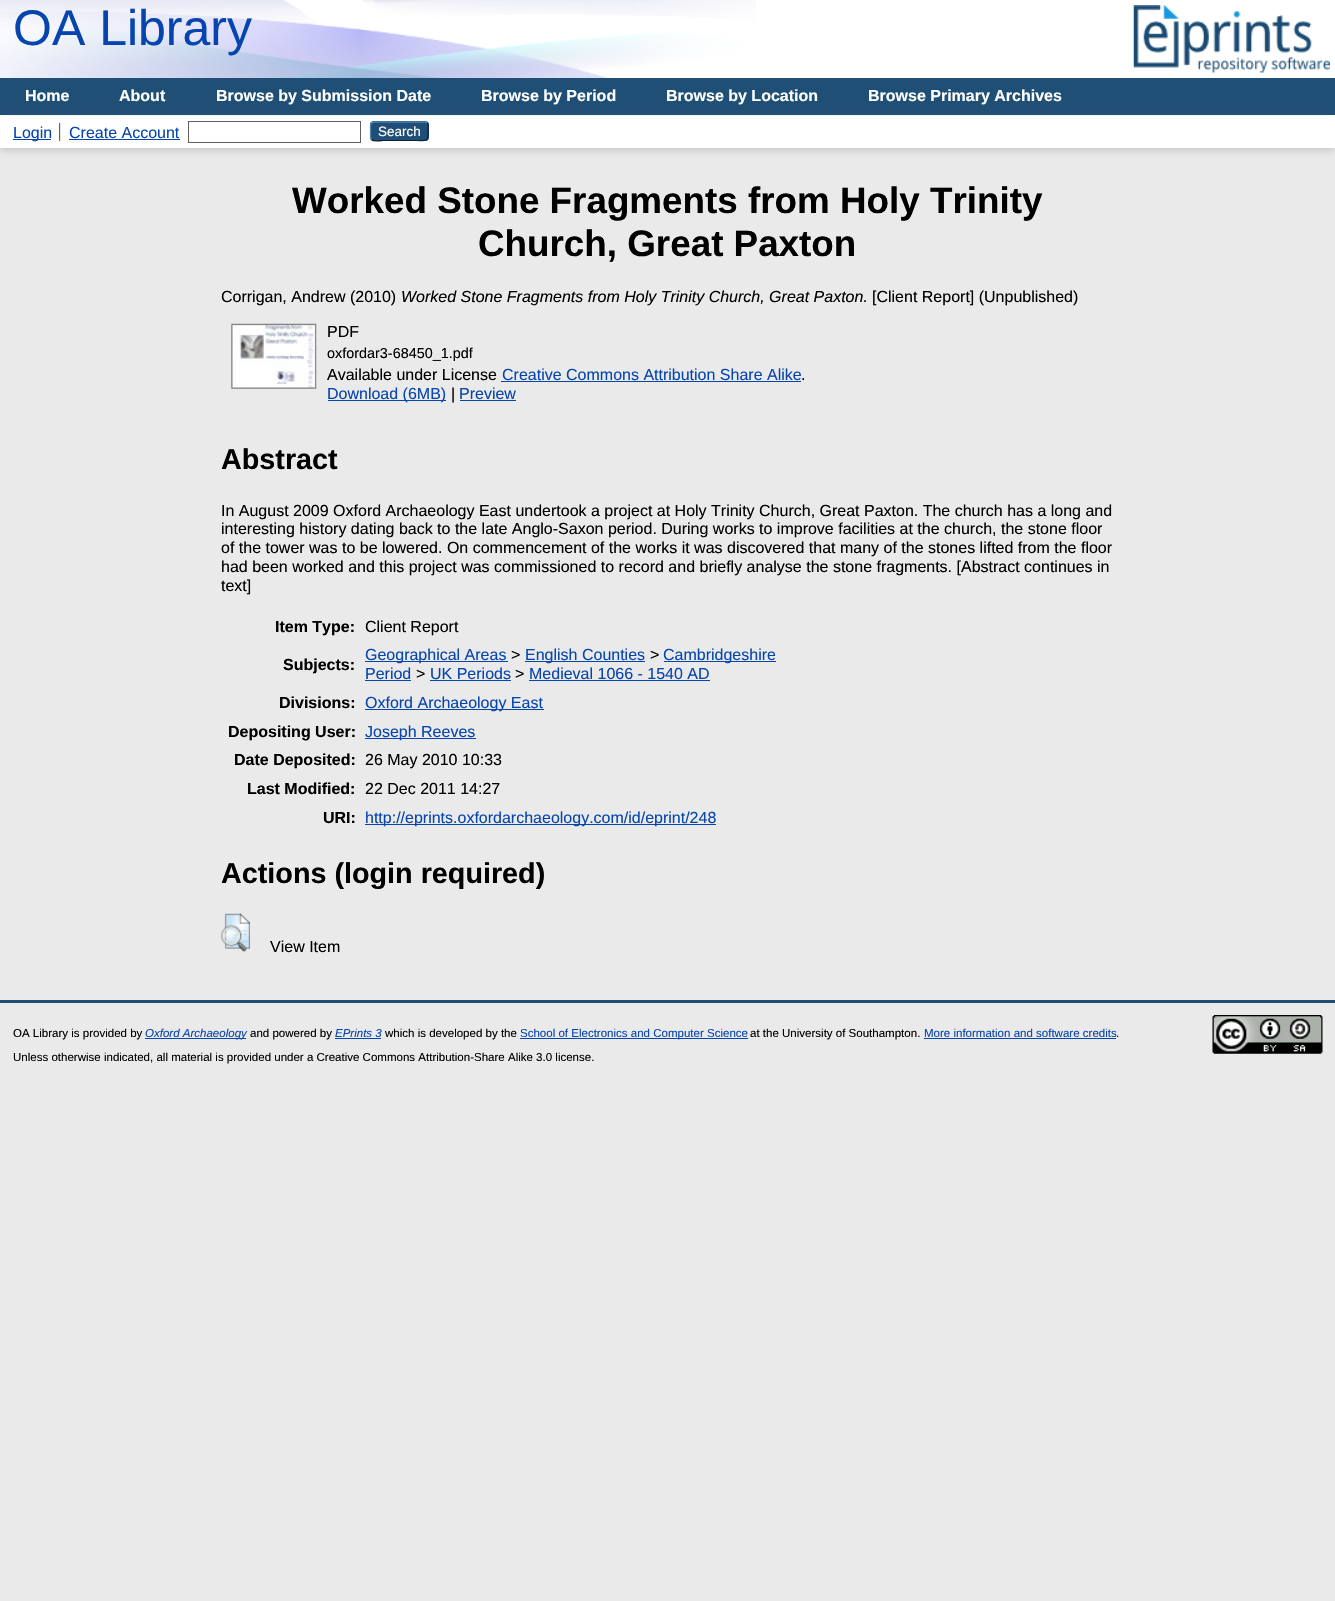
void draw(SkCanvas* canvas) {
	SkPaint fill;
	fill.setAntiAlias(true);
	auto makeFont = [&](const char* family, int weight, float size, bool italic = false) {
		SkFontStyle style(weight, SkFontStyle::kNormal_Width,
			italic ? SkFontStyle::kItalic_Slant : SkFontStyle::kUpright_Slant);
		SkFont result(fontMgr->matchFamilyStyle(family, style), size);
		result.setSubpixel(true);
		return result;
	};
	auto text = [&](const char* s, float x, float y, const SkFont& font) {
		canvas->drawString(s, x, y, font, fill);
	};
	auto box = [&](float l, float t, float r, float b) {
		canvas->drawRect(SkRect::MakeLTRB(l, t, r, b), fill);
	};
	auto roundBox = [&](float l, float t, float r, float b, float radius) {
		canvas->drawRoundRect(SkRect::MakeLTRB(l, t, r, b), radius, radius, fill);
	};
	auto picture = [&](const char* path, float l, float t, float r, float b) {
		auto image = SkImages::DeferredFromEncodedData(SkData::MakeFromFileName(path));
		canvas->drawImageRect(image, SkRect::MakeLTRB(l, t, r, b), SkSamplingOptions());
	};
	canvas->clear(0xFFEAEAEA);
	fill.setColor(0xFFFFFFFF);
	box(0, 0, 1335, 78);
	picture("image0.png", 0, 0, 756, 78);
	picture("image1.png", 1133, 5, 1330, 73);
	fill.setColor(0xFF204F76);
	box(0, 78, 1335, 115);
	fill.setColor(0xFFFFFFFF);
	box(0, 115, 1335, 116);
	fill.setColor(0x4D646464);
	fill.setMaskFilter(SkMaskFilter::MakeBlur(kNormal_SkBlurStyle, 4));
	canvas->drawRect(SkRect::MakeLTRB(0, 119, 1335, 150), fill);
	fill.setMaskFilter(nullptr);
	fill.setColor(0xFFFFFFFF);
	box(0, 116, 1335, 148);
	fill.setColor(0xFF606060);
	box(59, 123, 60, 141);
	fill.setColor(0xFF0645AD);
	box(13, 139, 51, 140);
	fill.setColor(0xFFE8E8E8);
	box(60, 123, 61, 141);
	fill.setColor(0xFF0645AD);
	box(69, 139, 180, 140);
	fill.setStyle(SkPaint::kStroke_Style);
	fill.setStrokeWidth(1);
	fill.setColor(0xFF606060);
	canvas->drawRect(SkRect::MakeLTRB(188.5f, 121.5f, 360.5f, 142.5f), fill);
	fill.setStyle(SkPaint::kFill_Style);
	fill.setColor(0xFF1F4F76);
	roundBox(370, 121, 429, 141, 4);
	fill.setStyle(SkPaint::kStroke_Style);
	fill.setStrokeWidth(1.2f);
	fill.setColor(0xFF5B97C7);
	canvas->drawPath(SkPathBuilder().moveTo(371.5f, 123).lineTo(373.5f, 122).lineTo(425.5f, 122).lineTo(427, 123).detach(), fill);
	fill.setColor(0xFF0D2131);
	canvas->drawPath(SkPathBuilder().moveTo(427, 123).cubicTo(429, 125, 428, 129, 428, 131).cubicTo(428, 142.5f, 428.5f, 140.5f, 416.5f, 140.5f).lineTo(382.5f, 140.5f).cubicTo(382, 140.5f, 374, 142, 371.5f, 139.5f).detach(), fill);
	fill.setColor(0xFF5287B3);
	canvas->drawPath(SkPathBuilder().moveTo(371.5f, 139.5f).cubicTo(370, 138, 370.5f, 133.5f, 370.5f, 131).cubicTo(370.5f, 129, 370, 124.5f, 371.5f, 123).detach(), fill);
	picture("image2.png", 231, 323, 317, 389);
	fill.setStyle(SkPaint::kFill_Style);
	fill.setColor(0xFF0645AD);
	box(501, 381, 801, 382);
	box(328, 400, 446, 401);
	box(460, 400, 516, 401);
	box(365, 661, 508, 662);
	box(525, 661, 645, 662);
	box(664, 661, 776, 662);
	box(365, 680, 411, 681);
	box(430, 680, 511, 681);
	box(529, 680, 710, 681);
	box(365, 709, 544, 710);
	box(365, 738, 476, 739);
	box(365, 824, 716, 825);
	picture("image3.png", 221, 913, 250, 952);
	fill.setColor(0xFF204F76);
	box(0, 1000, 1335, 1003);
	fill.setColor(0xFF0645AD);
	box(145, 1038, 246, 1039);
	box(335, 1038, 381, 1039);
	box(520, 1038, 748, 1039);
	box(924, 1038, 1116, 1039);
	picture("image4.png", 1212, 1015, 1323, 1054);
	auto font1 = makeFont("Liberation Sans", 400, 50);
	text("OA Library", 13, 45, font1);
	auto font2 = makeFont("Liberation Sans", 700, 16);
	fill.setColor(0xFFFFFFFF);
	text("Home", 25, 101, font2);
	text("About", 119, 101, font2);
	text("Browse by Submission Date", 216, 101, font2);
	text("Browse by Period", 481, 101, font2);
	text("Browse by Location", 666, 101, font2);
	text("Browse Primary Archives", 868, 101, font2);
	auto font3 = makeFont("Liberation Sans", 400, 16);
	fill.setColor(0xFF0645AD);
	text("Login", 13, 138, font3);
	text("Create Account", 69, 138, font3);
	auto font4 = makeFont("Liberation Sans", 400, 13.5f);
	fill.setColor(0xFFFFFFFF);
	text("Search", 378, 136, font4);
	auto font5 = makeFont("Liberation Sans", 700, 36.8f);
	fill.setColor(0xFF000000);
	text("Worked Stone Fragments from Holy Trinity", 292, 213, font5);
	text("Church, Great Paxton", 478, 256, font5);
	text("Corrigan, Andrew (2010)", 221, 302, font3);
	auto font6 = makeFont("Liberation Sans", 400, 16, true);
	text("Worked Stone Fragments from Holy Trinity Church, Great Paxton.", 401, 302, font6);
	text("[Client Report] (Unpublished)", 872, 302, font3);
	text("PDF", 327, 337, font3);
	auto font7 = makeFont("Liberation Sans", 400, 14.4f);
	text("oxfordar3-68450_1.pdf", 327, 358, font7);
	text("Available under License", 327, 380, font3);
	fill.setColor(0xFF0645AD);
	text("Creative Commons Attribution Share Alike", 502, 380, font3);
	fill.setColor(0xFF000000);
	text(".", 801, 380, font3);
	fill.setColor(0xFF0645AD);
	text("Download (6MB)", 327, 399, font3);
	fill.setColor(0xFF000000);
	text("|", 451, 399, font3);
	fill.setColor(0xFF0645AD);
	text("Preview", 459, 399, font3);
	auto font8 = makeFont("Liberation Sans", 700, 28.75f);
	fill.setColor(0xFF000000);
	text("Abstract", 221, 469, font8);
	text("In August 2009 Oxford Archaeology East undertook a project at Holy Trinity Church, Great Paxton. The church has a long and", 221, 516, font3);
	text("interesting history dating back to the late Anglo-Saxon period. During works to improve facilities at the church, the stone floor", 221, 534, font3);
	text("of the tower was to be lowered. On commencement of the works it was discovered that many of the stones lifted from the floor", 221, 553, font3);
	text("had been worked and this project was commissioned to record and briefly analyse the stone fragments. [Abstract continues in", 221, 572, font3);
	text("text]", 221, 591, font3);
	text("Item Type:", 275, 632, font2);
	text("Client Report", 365, 632, font3);
	text("Subjects:", 283, 670, font2);
	fill.setColor(0xFF0645AD);
	text("Geographical Areas", 365, 660, font3);
	fill.setColor(0xFF000000);
	text(">", 511, 660, font3);
	fill.setColor(0xFF0645AD);
	text("English Counties", 525, 660, font3);
	fill.setColor(0xFF000000);
	text(">", 650, 660, font3);
	fill.setColor(0xFF0645AD);
	text("Cambridgeshire", 663, 660, font3);
	text("Period", 365, 679, font3);
	fill.setColor(0xFF000000);
	text(">", 416, 679, font3);
	fill.setColor(0xFF0645AD);
	text("UK Periods", 430, 679, font3);
	fill.setColor(0xFF000000);
	text(">", 515, 679, font3);
	fill.setColor(0xFF0645AD);
	text("Medieval 1066 - 1540 AD", 529, 679, font3);
	fill.setColor(0xFF000000);
	text("Divisions:", 279, 708, font2);
	fill.setColor(0xFF0645AD);
	text("Oxford Archaeology East", 365, 708, font3);
	fill.setColor(0xFF000000);
	text("Depositing User:", 228, 737, font2);
	fill.setColor(0xFF0645AD);
	text("Joseph Reeves", 365, 737, font3);
	fill.setColor(0xFF000000);
	text("Date Deposited:", 234, 765, font2);
	text("26 May 2010 10:33", 365, 765, font3);
	text("Last Modified:", 247, 794, font2);
	text("22 Dec 2011 14:27", 365, 794, font3);
	text("URI:", 323, 823, font2);
	fill.setColor(0xFF0645AD);
	text("http://eprints.oxfordarchaeology.com/id/eprint/248", 365, 823, font3);
	fill.setColor(0xFF000000);
	text("Actions (login required)", 221, 883, font8);
	text("View Item", 270, 952, font3);
	auto font9 = makeFont("Liberation Sans", 400, 11.52f);
	text("OA Library is provided by", 13, 1037, font9);
	auto font10 = makeFont("Liberation Sans", 400, 11.52f, true);
	fill.setColor(0xFF0645AD);
	text("Oxford Archaeology", 145, 1037, font10);
	fill.setColor(0xFF000000);
	text("and powered by", 250, 1037, font9);
	fill.setColor(0xFF0645AD);
	text("EPrints 3", 335, 1037, font10);
	fill.setColor(0xFF000000);
	text("which is developed by the", 385, 1037, font9);
	fill.setColor(0xFF0645AD);
	text("School of Electronics and Computer Science", 520, 1037, font9);
	fill.setColor(0xFF000000);
	text("at the University of Southampton.", 750, 1037, font9);
	fill.setColor(0xFF0645AD);
	text("More information and software credits", 924, 1037, font9);
	fill.setColor(0xFF000000);
	text(".", 1116, 1037, font9);
	text("Unless otherwise indicated, all material is provided under a Creative Commons Attribution-Share Alike 3.0 license.", 13, 1061, font9);
}
